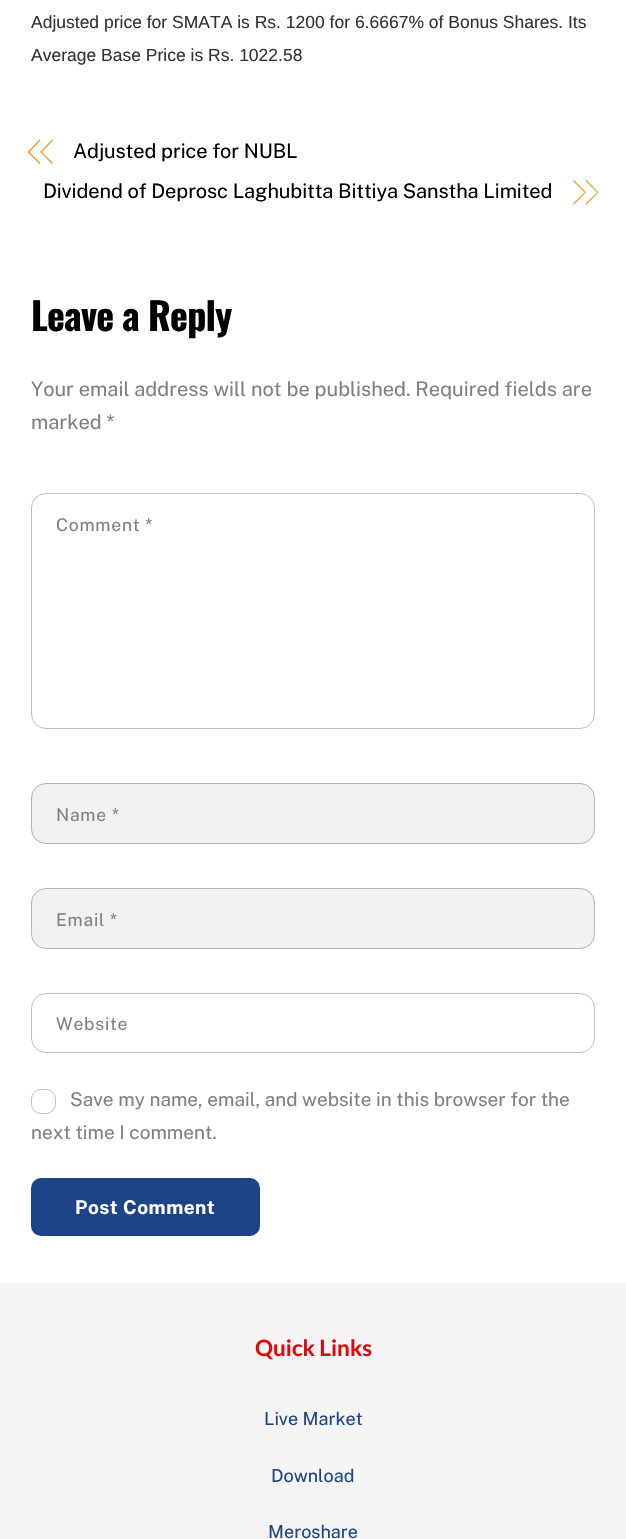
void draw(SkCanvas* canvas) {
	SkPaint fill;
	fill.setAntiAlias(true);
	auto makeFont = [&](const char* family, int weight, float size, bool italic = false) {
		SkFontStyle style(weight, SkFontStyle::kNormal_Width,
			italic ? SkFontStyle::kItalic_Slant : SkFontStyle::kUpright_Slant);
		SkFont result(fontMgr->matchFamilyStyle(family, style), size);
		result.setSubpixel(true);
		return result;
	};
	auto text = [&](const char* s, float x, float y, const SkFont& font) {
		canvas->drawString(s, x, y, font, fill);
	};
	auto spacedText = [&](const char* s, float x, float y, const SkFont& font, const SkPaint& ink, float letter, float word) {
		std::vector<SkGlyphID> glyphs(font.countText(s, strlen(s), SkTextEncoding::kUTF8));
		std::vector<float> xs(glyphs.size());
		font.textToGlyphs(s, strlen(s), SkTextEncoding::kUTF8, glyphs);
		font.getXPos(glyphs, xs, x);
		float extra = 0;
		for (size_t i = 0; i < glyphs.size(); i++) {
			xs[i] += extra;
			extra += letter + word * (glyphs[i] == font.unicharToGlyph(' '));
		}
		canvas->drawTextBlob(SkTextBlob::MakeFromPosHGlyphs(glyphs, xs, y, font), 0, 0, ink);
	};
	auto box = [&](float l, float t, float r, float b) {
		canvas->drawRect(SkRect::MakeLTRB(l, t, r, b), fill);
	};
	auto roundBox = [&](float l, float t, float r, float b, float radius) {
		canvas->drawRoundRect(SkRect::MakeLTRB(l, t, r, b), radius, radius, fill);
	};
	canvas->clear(0xFFFFFFFF);
	fill.setColor(0xFFF69C32);
	canvas->drawPath(SkPathBuilder().moveTo(27.5f, 152).lineTo(40, 139).lineTo(40, 141).lineTo(29.5f, 152).close().moveTo(40, 164.5f).lineTo(27.5f, 152).lineTo(29.5f, 152).lineTo(40, 162.5f).close().moveTo(40, 152).lineTo(52.5f, 139).lineTo(52.5f, 141).lineTo(42, 152).close().detach(), fill);
	canvas->drawPath(SkPathBuilder().moveTo(52.5f, 164.5f).lineTo(40, 152).lineTo(42, 152).lineTo(52.5f, 162.5f).close().detach(), fill);
	canvas->drawPath(SkPathBuilder().moveTo(586, 179.5f).lineTo(598.5f, 192.5f).lineTo(597, 192.5f).lineTo(586, 181.5f).close().detach(), fill);
	canvas->drawPath(SkPathBuilder().moveTo(598.5f, 192.5f).lineTo(586, 205).lineTo(586, 203).lineTo(597, 192.5f).close().moveTo(573.5f, 179.5f).lineTo(586, 192.5f).lineTo(584.5f, 192.5f).lineTo(573.5f, 181.5f).close().detach(), fill);
	canvas->drawPath(SkPathBuilder().moveTo(586, 192.5f).lineTo(573.5f, 205).lineTo(573.5f, 203).lineTo(584.5f, 192.5f).close().detach(), fill);
	fill.setStyle(SkPaint::kStroke_Style);
	fill.setStrokeWidth(1);
	fill.setColor(0xFFBFBFBF);
	canvas->drawRoundRect(SkRect::MakeLTRB(31.5f, 493.5f, 594.5f, 728.5f), 14.5f, 14.5f, fill);
	fill.setStyle(SkPaint::kFill_Style);
	fill.setColor(0xFFF1F1F1);
	roundBox(31, 783, 595, 844, 15);
	fill.setStyle(SkPaint::kStroke_Style);
	fill.setColor(0x40000000);
	canvas->drawRoundRect(SkRect::MakeLTRB(31.5f, 783.5f, 594.5f, 843.5f), 14.5f, 14.5f, fill);
	fill.setStyle(SkPaint::kFill_Style);
	fill.setColor(0xFFF1F1F1);
	roundBox(31, 888, 595, 949, 15);
	fill.setStyle(SkPaint::kStroke_Style);
	fill.setColor(0x40000000);
	canvas->drawRoundRect(SkRect::MakeLTRB(31.5f, 888.5f, 594.5f, 948.5f), 14.5f, 14.5f, fill);
	fill.setColor(0xFFBFBFBF);
	canvas->drawRoundRect(SkRect::MakeLTRB(31.5f, 993.5f, 594.5f, 1052.5f), 14.5f, 14.5f, fill);
	canvas->drawRoundRect(SkRect::MakeLTRB(31.5f, 1089.5f, 55.5f, 1113.5f), 9.5f, 9.5f, fill);
	fill.setStyle(SkPaint::kFill_Style);
	fill.setColor(0xFF1D4486);
	roundBox(31, 1178, 260, 1236, 10);
	fill.setColor(0xFFF5F5F5);
	box(0, 1283, 626, 1539);
	auto font1 = makeFont("Liberation Sans", 400, 17.5f);
	fill.setColor(0xFF333333);
	text("Adjusted price for SMATA is Rs. 1200 for 6.6667% of Bonus Shares. Its", 31, 28, font1);
	text("Average Base Price is Rs. 1022.58", 31, 61, font1);
	auto font2 = makeFont("Public Sans", 400, 20);
	fill.setColor(0xFF000000);
	spacedText("Adjusted price for NUBL", 73, 158, font2, fill, -0.1f, 0);
	spacedText("Dividend of Deprosc Laghubitta Bittiya Sanstha Limited", 43, 198, font2, fill, -0.1f, 0);
	auto font3 = makeFont("Oswald", 700, 38);
	spacedText("Leave a Reply", 31, 331, font3, fill, -0.75f, 0);
	fill.setColor(0xFF808080);
	text("Your email address will not be published. Required fields are", 31, 396, font2);
	text("marked *", 31, 429, font2);
	auto font4 = makeFont("Public Sans", 400, 17.5f);
	spacedText("Comment *", 56, 531, font4, fill, 0.75f, 0);
	spacedText("Name *", 56, 821, font4, fill, 0.75f, 0);
	spacedText("Email *", 56, 926, font4, fill, 0.75f, 0);
	spacedText("Website", 56, 1030, font4, fill, 0.75f, 0);
	auto font5 = makeFont("Public Sans", 400, 19);
	text("Save my name, email, and website in this browser for the", 70, 1106, font5);
	text("next time I comment.", 31, 1139, font5);
	auto font6 = makeFont("Public Sans", 700, 19);
	fill.setColor(0xFFFFFFFF);
	spacedText("Post Comment", 75, 1214, font6, fill, 0.5f, 0);
	auto font7 = makeFont("Lato", 700, 22.5f);
	fill.setColor(0xFFE1080C);
	text("Quick Links", 255, 1356, font7);
	auto font8 = makeFont("Public Sans", 400, 18);
	fill.setColor(0xFF1D4486);
	text("Live Market", 264, 1425, font8);
	text("Download", 271, 1482, font8);
	text("Meroshare", 268, 1538, font8);
}
